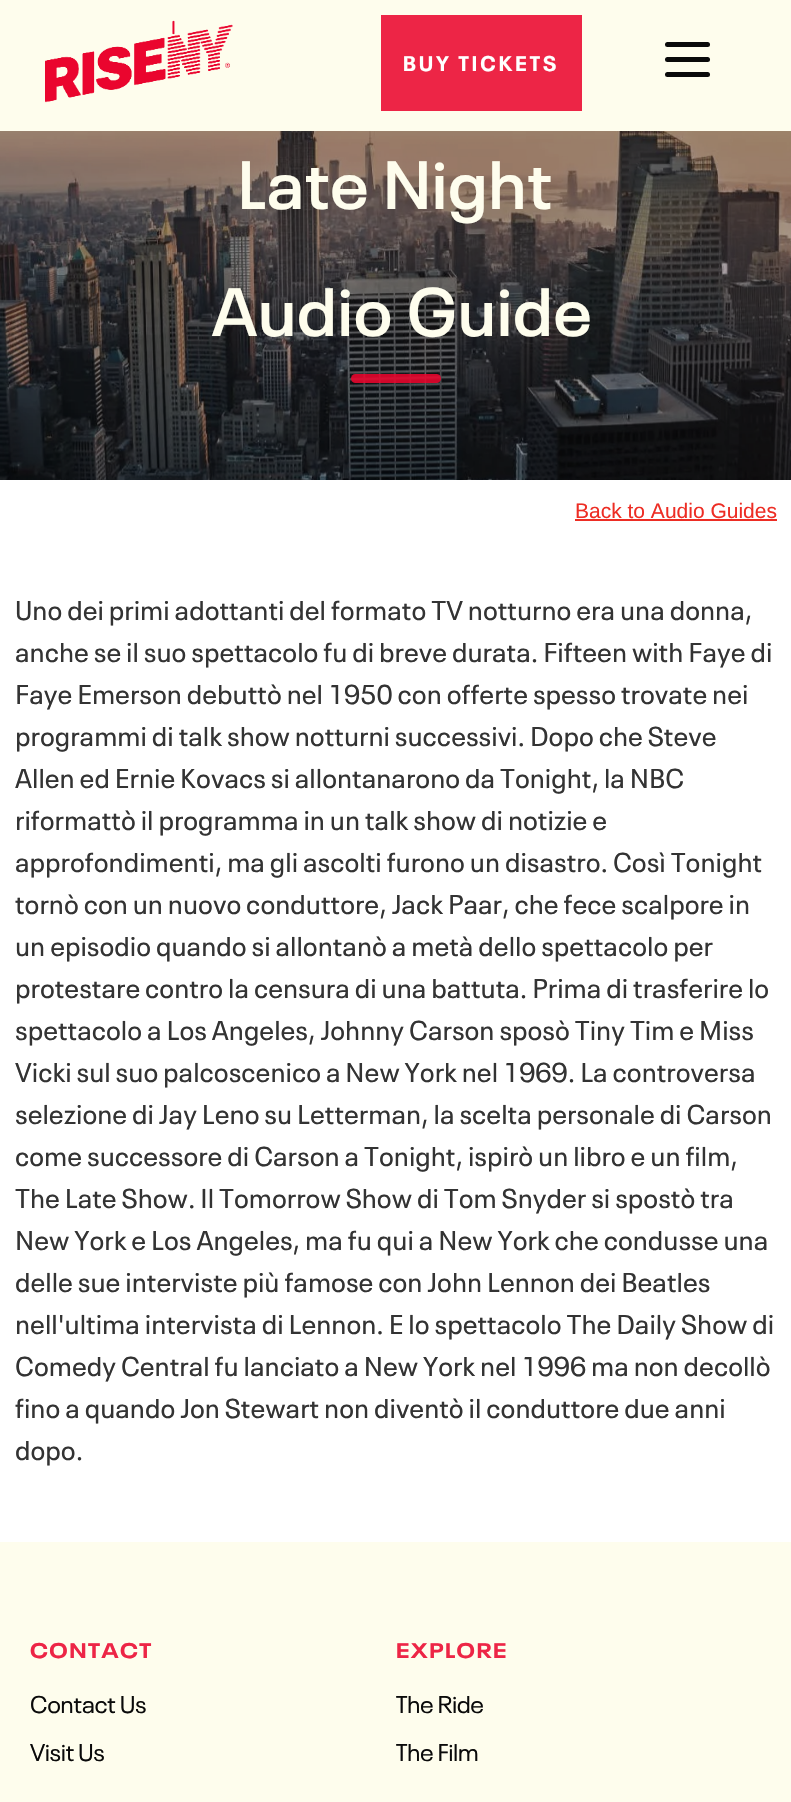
void draw(SkCanvas* canvas) {
	SkPaint fill;
	fill.setAntiAlias(true);
	auto makeFont = [&](const char* family, int weight, float size, bool italic = false) {
		SkFontStyle style(weight, SkFontStyle::kNormal_Width,
			italic ? SkFontStyle::kItalic_Slant : SkFontStyle::kUpright_Slant);
		SkFont result(fontMgr->matchFamilyStyle(family, style), size);
		result.setSubpixel(true);
		return result;
	};
	auto text = [&](const char* s, float x, float y, const SkFont& font) {
		canvas->drawString(s, x, y, font, fill);
	};
	auto spacedText = [&](const char* s, float x, float y, const SkFont& font, const SkPaint& ink, float letter, float word) {
		std::vector<SkGlyphID> glyphs(font.countText(s, strlen(s), SkTextEncoding::kUTF8));
		std::vector<float> xs(glyphs.size());
		font.textToGlyphs(s, strlen(s), SkTextEncoding::kUTF8, glyphs);
		font.getXPos(glyphs, xs, x);
		float extra = 0;
		for (size_t i = 0; i < glyphs.size(); i++) {
			xs[i] += extra;
			extra += letter + word * (glyphs[i] == font.unicharToGlyph(' '));
		}
		canvas->drawTextBlob(SkTextBlob::MakeFromPosHGlyphs(glyphs, xs, y, font), 0, 0, ink);
	};
	auto box = [&](float l, float t, float r, float b) {
		canvas->drawRect(SkRect::MakeLTRB(l, t, r, b), fill);
	};
	auto roundBox = [&](float l, float t, float r, float b, float radius) {
		canvas->drawRoundRect(SkRect::MakeLTRB(l, t, r, b), radius, radius, fill);
	};
	auto picture = [&](const char* path, float l, float t, float r, float b) {
		auto image = SkImages::DeferredFromEncodedData(SkData::MakeFromFileName(path));
		canvas->drawImageRect(image, SkRect::MakeLTRB(l, t, r, b), SkSamplingOptions());
	};
	canvas->clear(0xFFFFFFFF);
	fill.setColor(0xFFFEFDED);
	box(0, 0, 791, 131);
	picture("image0.png", 45, 20, 233, 103);
	fill.setColor(0xFFED2546);
	box(381, 15, 582, 111);
	fill.setColor(0xFF0A0A0A);
	roundBox(665, 42, 710, 47, 2.5f);
	roundBox(665, 57, 710, 62, 2.5f);
	roundBox(665, 72, 710, 77, 2.5f);
	picture("image1.png", 0, 131, 791, 480);
	fill.setColor(0xDEEB052D);
	roundBox(351, 374, 441, 383, 4.5f);
	fill.setColor(0xFFED2D24);
	box(575, 519, 777, 521);
	fill.setColor(0xFFFEFDED);
	box(0, 1542, 791, 1802);
	auto font1 = makeFont("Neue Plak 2", 700, 21);
	fill.setColor(0xFFFFFFFF);
	spacedText("BUY TICKETS", 403, 71, font1, fill, 3, 0);
	auto font2 = makeFont("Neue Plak", 600, 67.5f);
	fill.setColor(0xFFFEFDED);
	spacedText("Late Night", 238, 209, font2, fill, 1.5f, 0);
	spacedText("Audio Guide", 212, 336, font2, fill, 1.5f, 0);
	auto font3 = makeFont("Liberation Sans", 400, 21);
	fill.setColor(0xFFED2D24);
	text("Back to Audio Guides", 575, 518, font3);
	auto font4 = makeFont("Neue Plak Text", 400, 27);
	fill.setColor(0xFF333333);
	text("Uno dei primi adottanti del formato TV notturno era una donna,", 15, 620, font4);
	text("anche se il suo spettacolo fu di breve durata. Fifteen with Faye di", 15, 662, font4);
	text("Faye Emerson debuttò nel 1950 con offerte spesso trovate nei", 15, 704, font4);
	text("programmi di talk show notturni successivi. Dopo che Steve", 15, 746, font4);
	text("Allen ed Ernie Kovacs si allontanarono da Tonight, la NBC", 15, 788, font4);
	text("riformattò il programma in un talk show di notizie e", 15, 830, font4);
	text("approfondimenti, ma gli ascolti furono un disastro. Così Tonight", 15, 872, font4);
	text("tornò con un nuovo conduttore, Jack Paar, che fece scalpore in", 15, 914, font4);
	text("un episodio quando si allontanò a metà dello spettacolo per", 15, 956, font4);
	text("protestare contro la censura di una battuta. Prima di trasferire lo", 15, 998, font4);
	text("spettacolo a Los Angeles, Johnny Carson sposò Tiny Tim e Miss", 15, 1040, font4);
	text("Vicki sul suo palcoscenico a New York nel 1969. La controversa", 15, 1082, font4);
	text("selezione di Jay Leno su Letterman, la scelta personale di Carson", 15, 1124, font4);
	text("come successore di Carson a Tonight, ispirò un libro e un film,", 15, 1166, font4);
	text("The Late Show. Il Tomorrow Show di Tom Snyder si spostò tra", 15, 1208, font4);
	text("New York e Los Angeles, ma fu qui a New York che condusse una", 15, 1250, font4);
	text("delle sue interviste più famose con John Lennon dei Beatles", 15, 1292, font4);
	text("nell'ultima intervista di Lennon. E lo spettacolo The Daily Show di", 15, 1334, font4);
	text("Comedy Central fu lanciato a New York nel 1996 ma non decollò", 15, 1376, font4);
	text("fino a quando Jon Stewart non diventò il conduttore due anni", 15, 1418, font4);
	text("dopo.", 15, 1460, font4);
	auto font5 = makeFont("Neue Plak", 700, 21);
	fill.setColor(0xFFED2546);
	spacedText("CONTACT", 30, 1658, font5, fill, 1.5f, 0);
	auto font6 = makeFont("Neue Plak", 400, 24);
	fill.setColor(0xFF0A0A0A);
	text("Contact Us", 30, 1713, font6);
	text("Visit Us", 30, 1761, font6);
	fill.setColor(0xFFED2546);
	spacedText("EXPLORE", 396, 1658, font5, fill, 1.5f, 0);
	fill.setColor(0xFF0A0A0A);
	text("The Ride", 396, 1713, font6);
	text("The Film", 396, 1761, font6);
}
